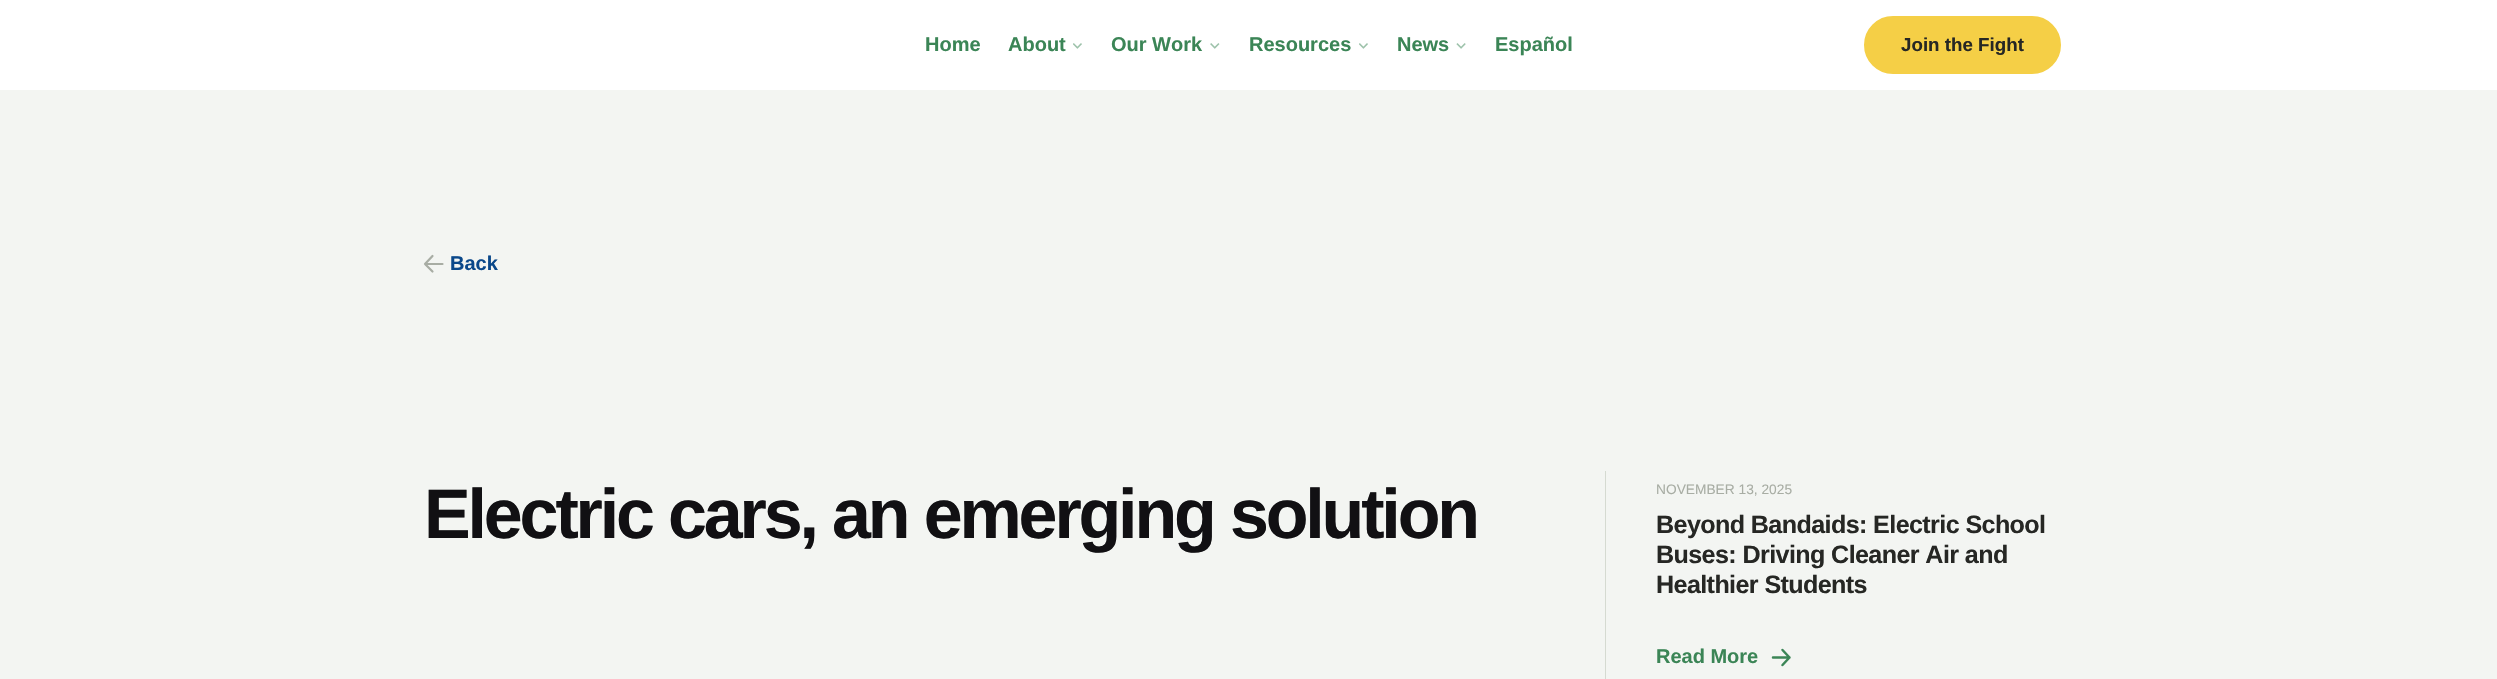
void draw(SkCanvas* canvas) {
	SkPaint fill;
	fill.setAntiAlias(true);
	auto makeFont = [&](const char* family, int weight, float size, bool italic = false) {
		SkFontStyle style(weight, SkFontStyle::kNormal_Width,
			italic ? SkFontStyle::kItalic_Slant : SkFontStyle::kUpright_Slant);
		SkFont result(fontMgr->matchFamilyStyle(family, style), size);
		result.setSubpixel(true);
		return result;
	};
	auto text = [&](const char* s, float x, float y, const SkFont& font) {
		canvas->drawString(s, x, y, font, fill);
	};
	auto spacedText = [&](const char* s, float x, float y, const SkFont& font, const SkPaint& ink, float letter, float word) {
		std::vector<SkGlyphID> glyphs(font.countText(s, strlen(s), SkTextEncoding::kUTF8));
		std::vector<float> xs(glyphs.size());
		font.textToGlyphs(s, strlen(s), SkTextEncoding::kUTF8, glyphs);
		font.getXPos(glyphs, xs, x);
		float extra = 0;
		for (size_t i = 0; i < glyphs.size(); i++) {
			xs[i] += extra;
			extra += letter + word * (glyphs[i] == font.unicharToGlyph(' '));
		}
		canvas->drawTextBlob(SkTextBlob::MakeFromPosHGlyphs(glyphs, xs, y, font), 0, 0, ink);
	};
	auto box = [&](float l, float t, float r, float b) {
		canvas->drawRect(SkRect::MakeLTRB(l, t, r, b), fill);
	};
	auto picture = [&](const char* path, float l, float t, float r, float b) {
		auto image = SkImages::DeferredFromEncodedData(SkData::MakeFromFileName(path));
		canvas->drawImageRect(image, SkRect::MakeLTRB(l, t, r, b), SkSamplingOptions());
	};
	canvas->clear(0xFFF3F5F2);
	fill.setColor(0xFFFFFFFF);
	box(0, 0, 2497, 90);
	picture("image0.png", 1073, 43, 1082, 49);
	picture("image1.png", 1210, 43, 1220, 49);
	picture("image2.png", 1359, 43, 1368, 49);
	picture("image3.png", 1456, 43, 1466, 49);
	fill.setColor(0xFFF5CF46);
	canvas->drawRoundRect(SkRect::MakeLTRB(1865.5f, 17.5f, 2059.5f, 72.5f), 27.5f, 27.5f, fill);
	fill.setStyle(SkPaint::kStroke_Style);
	fill.setStrokeWidth(3);
	canvas->drawRoundRect(SkRect::MakeLTRB(1865.5f, 17.5f, 2059.5f, 72.5f), 27.5f, 27.5f, fill);
	fill.setStrokeWidth(2.2f);
	fill.setStrokeCap(SkPaint::kRound_Cap);
	fill.setStrokeJoin(SkPaint::kRound_Join);
	fill.setColor(0xFFA8ADA4);
	canvas->drawPath(SkPathBuilder().moveTo(442.5f, 264).lineTo(425, 264).moveTo(432.5f, 256).lineTo(425, 264).lineTo(432.5f, 271.5f).detach(), fill);
	fill.setStyle(SkPaint::kFill_Style);
	fill.setColor(0xFFD5DAD1);
	box(1605, 471, 1606, 679);
	fill.setStyle(SkPaint::kStroke_Style);
	fill.setStrokeWidth(2.5f);
	fill.setColor(0xFF3B8556);
	canvas->drawPath(SkPathBuilder().moveTo(1773, 657.5f).lineTo(1789.5f, 657.5f).moveTo(1782.5f, 650).lineTo(1789.5f, 657.5f).lineTo(1782.5f, 665).detach(), fill);
	auto font1 = makeFont("Liberation Sans", 700, 20);
	fill.setStyle(SkPaint::kFill_Style);
	text("Home", 925, 51, font1);
	text("About", 1008, 51, font1);
	text("Our Work", 1111, 51, font1);
	text("Resources", 1249, 51, font1);
	text("News", 1397, 51, font1);
	text("Español", 1495, 51, font1);
	auto font2 = makeFont("Liberation Sans", 700, 18.75f);
	fill.setColor(0xFF262724);
	text("Join the Fight", 1901, 51, font2);
	fill.setColor(0xFF0A488A);
	text("Back", 450, 270, font1);
	auto font3 = makeFont("Liberation Sans", 700, 70);
	fill.setColor(0xFF111013);
	spacedText("Electric cars, an emerging solution", 424, 538, font3, fill, -3.15f, 0);
	auto font4 = makeFont("Liberation Sans", 400, 13.75f);
	fill.setColor(0xFFA8ADA4);
	text("NOVEMBER 13, 2025", 1656, 494, font4);
	auto font5 = makeFont("Liberation Sans", 700, 25.1f);
	fill.setColor(0xFF262724);
	spacedText("Beyond Bandaids: Electric School", 1656, 533, font5, fill, -0.6f, 0);
	spacedText("Buses: Driving Cleaner Air and", 1656, 563, font5, fill, -0.6f, 0);
	spacedText("Healthier Students", 1656, 593, font5, fill, -0.6f, 0);
	fill.setColor(0xFF3B8556);
	text("Read More", 1656, 663, font1);
}
